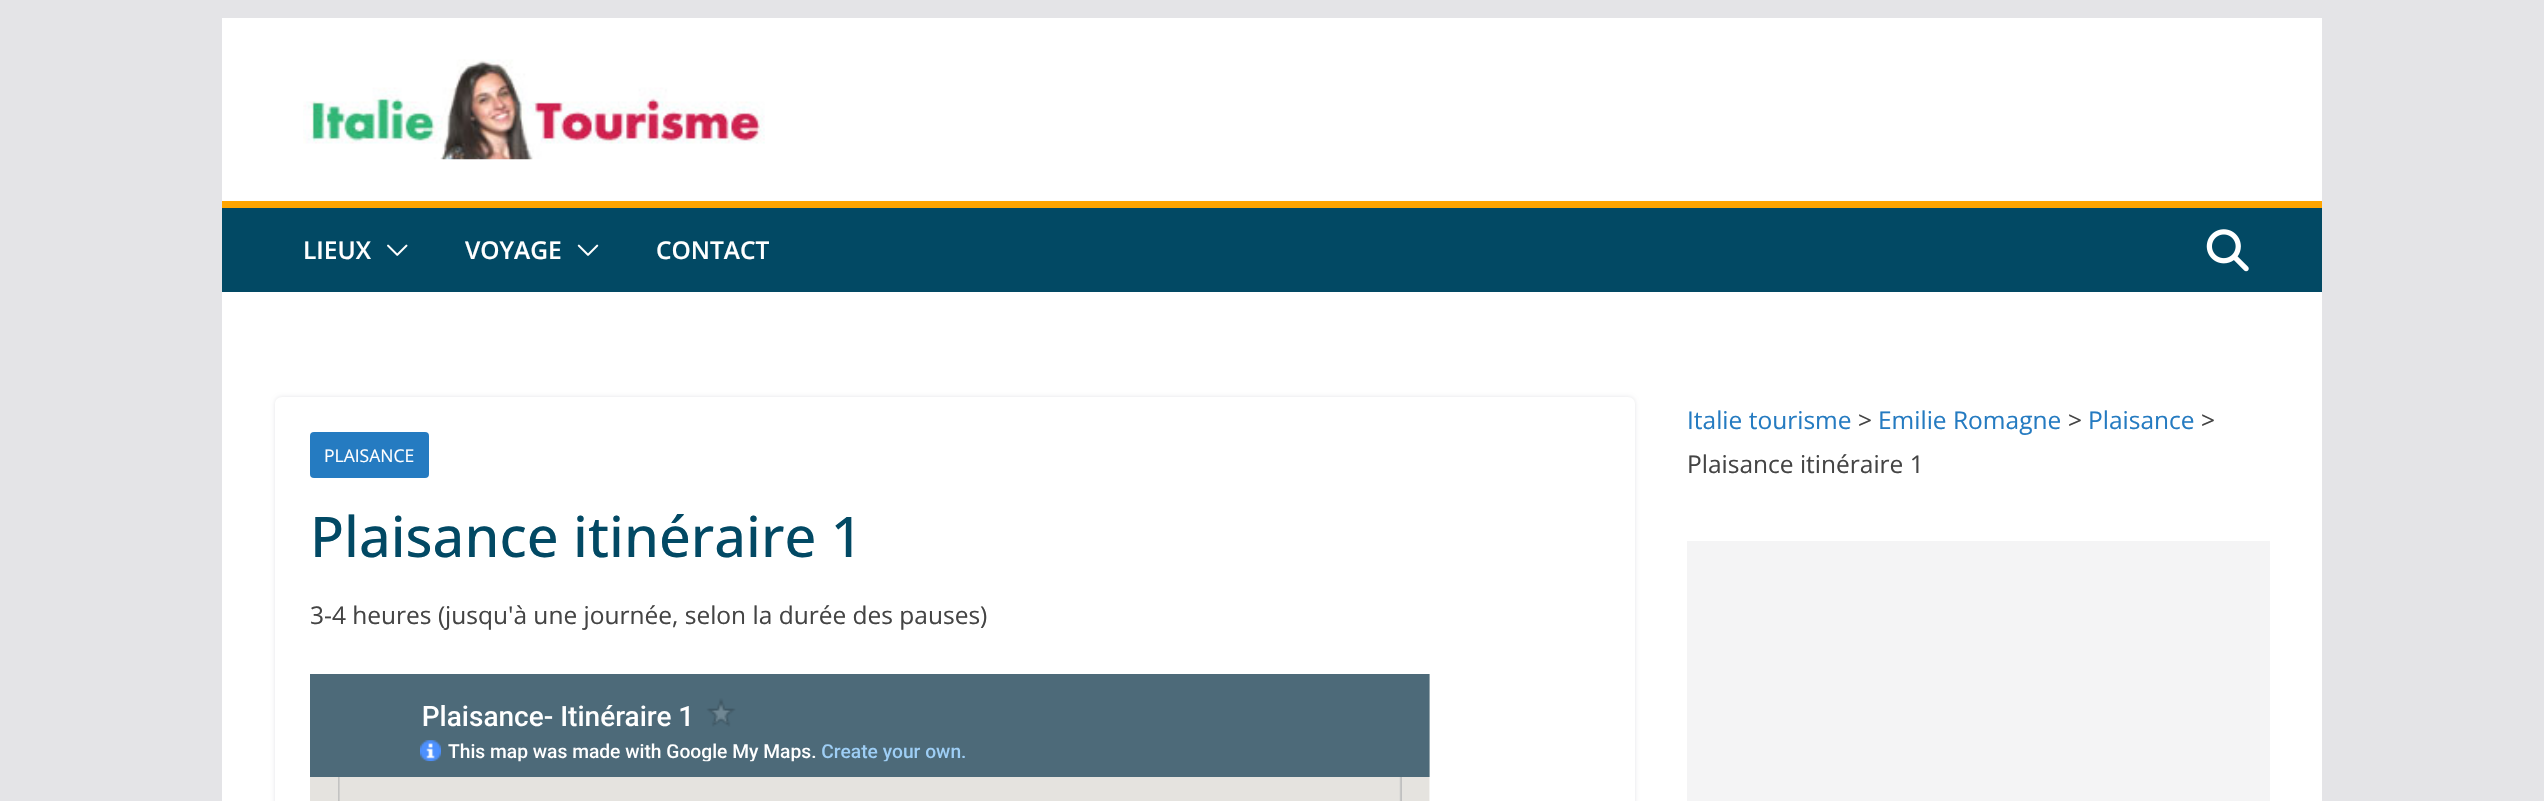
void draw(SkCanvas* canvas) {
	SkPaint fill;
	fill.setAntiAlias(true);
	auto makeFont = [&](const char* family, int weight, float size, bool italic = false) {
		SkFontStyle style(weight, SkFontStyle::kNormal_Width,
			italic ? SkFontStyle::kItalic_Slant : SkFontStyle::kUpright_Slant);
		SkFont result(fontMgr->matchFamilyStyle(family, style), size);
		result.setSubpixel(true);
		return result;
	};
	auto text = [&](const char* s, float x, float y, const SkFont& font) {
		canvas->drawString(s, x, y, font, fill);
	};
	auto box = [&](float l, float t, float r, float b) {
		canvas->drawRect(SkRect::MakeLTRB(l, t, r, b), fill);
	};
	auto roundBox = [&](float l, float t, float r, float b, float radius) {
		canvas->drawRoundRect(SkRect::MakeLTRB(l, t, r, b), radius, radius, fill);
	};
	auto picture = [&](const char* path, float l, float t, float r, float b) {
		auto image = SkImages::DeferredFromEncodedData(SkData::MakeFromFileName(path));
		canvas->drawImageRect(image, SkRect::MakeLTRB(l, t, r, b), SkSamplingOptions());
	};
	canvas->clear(0xFFE4E4E7);
	fill.setColor(0xFFFFFFFF);
	box(222, 18, 2322, 201);
	picture("image0.png", 303, 59, 765, 160);
	fill.setColor(0xFF024964);
	box(222, 208, 2322, 292);
	fill.setColor(0xFFFFA500);
	box(222, 201, 2322, 208);
	picture("image1.png", 387, 244, 408, 256);
	picture("image2.png", 577, 244, 599, 256);
	picture("image3.png", 2206, 229, 2249, 272);
	fill.setColor(0xFFFFFFFF);
	box(222, 292, 2322, 801);
	fill.setColor(0xFFF4F4F5);
	box(1687, 541, 2270, 801);
	canvas->save();
	canvas->clipPath(SkPathBuilder(SkPathFillType::kEvenOdd).moveTo(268, 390).lineTo(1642, 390).lineTo(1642, 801).lineTo(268, 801).close().moveTo(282, 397).lineTo(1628, 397).cubicTo(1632, 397, 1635, 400, 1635, 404).lineTo(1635, 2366).cubicTo(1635, 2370, 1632, 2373, 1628, 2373).lineTo(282, 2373).cubicTo(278, 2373, 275, 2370, 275, 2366).lineTo(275, 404).cubicTo(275, 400, 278, 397, 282, 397).close().detach(), true);
	fill.setColor(0xFFE4E4E7);
	fill.setMaskFilter(SkMaskFilter::MakeBlur(kNormal_SkBlurStyle, 2));
	canvas->drawRoundRect(SkRect::MakeLTRB(275, 397, 1635, 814), 7, 7, fill);
	fill.setMaskFilter(nullptr);
	canvas->restore();
	fill.setColor(0xFF257BC1);
	roundBox(310, 432, 429, 478, 4);
	picture("image4.png", 310, 674, 1430, 801);
	auto font1 = makeFont("Open Sans", 600, 24.5f);
	fill.setColor(0xFFFFFFFF);
	text("LIEUX", 303, 259, font1);
	text("VOYAGE", 465, 259, font1);
	text("CONTACT", 656, 259, font1);
	auto font2 = makeFont("Open Sans", 400, 24.5f);
	fill.setColor(0xFF257BC1);
	text("Italie tourisme", 1687, 429, font2);
	fill.setColor(0xFF444444);
	text(">", 1858, 429, font2);
	fill.setColor(0xFF257BC1);
	text("Emilie Romagne", 1878, 429, font2);
	fill.setColor(0xFF444444);
	text(">", 2068, 429, font2);
	fill.setColor(0xFF257BC1);
	text("Plaisance", 2088, 429, font2);
	fill.setColor(0xFF444444);
	text(">", 2201, 429, font2);
	text("Plaisance itinéraire 1", 1687, 473, font2);
	auto font3 = makeFont("Open Sans", 400, 17.5f);
	fill.setColor(0xFFFFFFFF);
	text("PLAISANCE", 324, 462, font3);
	auto font4 = makeFont("Open Sans", 500, 56);
	fill.setColor(0xFF024964);
	text("Plaisance itinéraire 1", 310, 557, font4);
	fill.setColor(0xFF444444);
	text("3-4 heures (jusqu'à une journée, selon la durée des pauses)", 310, 624, font2);
}
